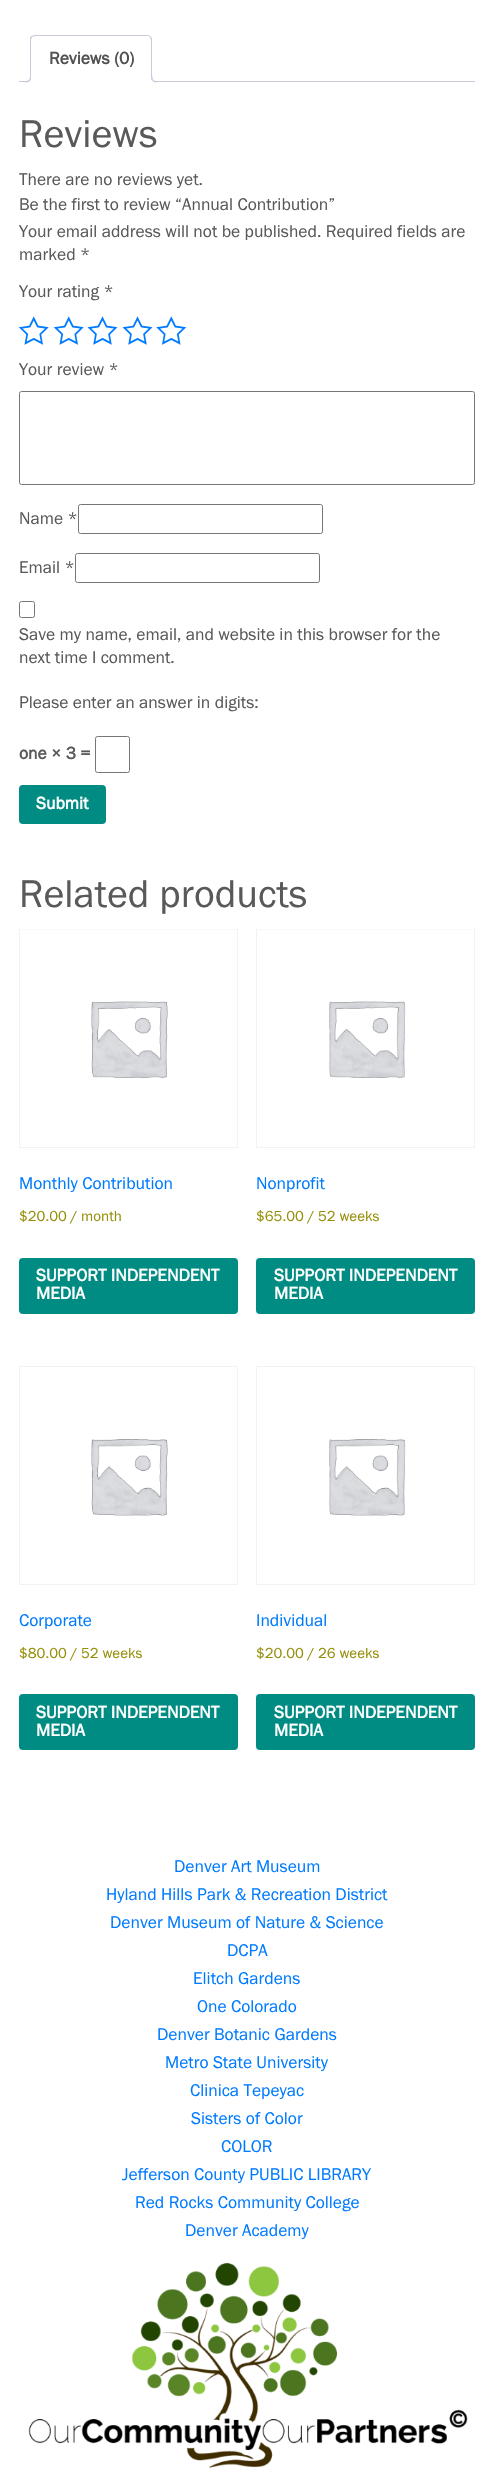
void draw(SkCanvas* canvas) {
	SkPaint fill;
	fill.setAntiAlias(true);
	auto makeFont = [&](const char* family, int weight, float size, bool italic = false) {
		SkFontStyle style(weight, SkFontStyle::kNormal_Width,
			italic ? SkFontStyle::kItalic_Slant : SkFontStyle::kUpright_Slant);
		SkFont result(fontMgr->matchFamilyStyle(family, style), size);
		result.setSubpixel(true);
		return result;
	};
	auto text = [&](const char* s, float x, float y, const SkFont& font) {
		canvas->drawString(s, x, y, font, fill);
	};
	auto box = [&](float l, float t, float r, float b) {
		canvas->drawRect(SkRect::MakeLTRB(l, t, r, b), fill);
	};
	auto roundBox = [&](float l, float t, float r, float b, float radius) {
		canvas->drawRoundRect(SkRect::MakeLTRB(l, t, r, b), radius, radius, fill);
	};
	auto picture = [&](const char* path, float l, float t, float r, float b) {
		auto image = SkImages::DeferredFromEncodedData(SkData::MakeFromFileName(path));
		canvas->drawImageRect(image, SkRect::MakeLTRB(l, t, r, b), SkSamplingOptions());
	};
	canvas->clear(0xFFFFFFFF);
	fill.setColor(0xFFCFC8D8);
	box(19, 81, 475, 82);
	fill.setColor(0xFFFFFFFF);
	canvas->drawPath(SkPathBuilder().moveTo(35, 35).lineTo(148, 35).cubicTo(151, 35, 153, 37, 153, 40).lineTo(153, 83).lineTo(30, 83).lineTo(30, 40).cubicTo(30, 37, 32, 35, 35, 35).close().detach(), fill);
	fill.setColor(0xFFCFC8D8);
	canvas->drawPath(SkPathBuilder().moveTo(35, 35).cubicTo(34, 35, 32, 36, 31, 36).lineTo(32, 37).lineTo(35, 36).lineTo(148, 36).lineTo(150, 37).lineTo(151, 37).cubicTo(150, 36, 149, 35, 148, 35).close().detach(), fill);
	canvas->drawPath(SkPathBuilder().moveTo(151, 37).cubicTo(152, 37, 152, 39, 152, 40).lineTo(152, 82).lineTo(151, 81).lineTo(151, 40).lineTo(150, 37).close().detach(), fill);
	fill.setColor(0xFFFFFFFF);
	canvas->drawPath(SkPathBuilder().moveTo(152, 82).lineTo(151, 81).lineTo(32, 81).lineTo(30, 82).close().detach(), fill);
	fill.setColor(0xFFCFC8D8);
	canvas->drawPath(SkPathBuilder().moveTo(30, 40).lineTo(30, 82).lineTo(32, 81).lineTo(31, 81).lineTo(31, 40).cubicTo(31, 39, 32, 38, 32, 37).lineTo(31, 36).cubicTo(30, 37, 30, 38, 30, 40).close().detach(), fill);
	canvas->save();
	canvas->clipRect(SkRect::MakeLTRB(19, 35, 475, 83));
	fill.setColor(0xFFFFFFFF);
	canvas->drawPath(SkPathBuilder().moveTo(28, 82).lineTo(28, 85).cubicTo(32, 85, 34, 83, 34, 79).lineTo(31, 79).cubicTo(30.5f, 80.5f, 29.5f, 81.5f, 28, 82).close().detach(), fill);
	canvas->restore();
	fill.setColor(0xFFCFC8D8);
	canvas->drawPath(SkPathBuilder(SkPathFillType::kEvenOdd).moveTo(25, 76).lineTo(31, 76).cubicTo(31, 80.5f, 29.5f, 82.5f, 25, 82.5f).close().moveTo(25, 76).lineTo(30, 76).cubicTo(30, 80, 28.5f, 81, 25, 81).close().detach(), fill);
	canvas->save();
	canvas->clipRect(SkRect::MakeLTRB(19, 35, 475, 83));
	fill.setColor(0xFFFFFFFF);
	canvas->drawPath(SkPathBuilder().moveTo(149, 79).cubicTo(149, 83, 151, 85, 155, 85).lineTo(155, 82.5f).cubicTo(153.5f, 82, 152, 80.5f, 151.5f, 79).close().detach(), fill);
	canvas->restore();
	fill.setColor(0xFFCFC8D8);
	canvas->drawPath(SkPathBuilder(SkPathFillType::kEvenOdd).moveTo(151, 76).lineTo(157.5f, 76).lineTo(157.5f, 82.5f).cubicTo(154.5f, 82.5f, 151, 81, 151, 77.5f).close().moveTo(152.5f, 76).lineTo(157.5f, 76).lineTo(157.5f, 81).cubicTo(155, 81, 152.5f, 80.5f, 152.5f, 77.5f).close().detach(), fill);
	picture("image0.png", 18, 316, 49, 345);
	picture("image0.png", 53, 316, 84, 345);
	picture("image1.png", 87, 316, 118, 345);
	picture("image1.png", 122, 316, 153, 345);
	picture("image2.png", 156, 316, 187, 345);
	fill.setStyle(SkPaint::kStroke_Style);
	fill.setStrokeWidth(1);
	fill.setColor(0xFF767676);
	canvas->drawRoundRect(SkRect::MakeLTRB(19.5f, 391.5f, 474.5f, 484.5f), 2, 2, fill);
	canvas->drawRoundRect(SkRect::MakeLTRB(78.5f, 504.5f, 322.5f, 533.5f), 2, 2, fill);
	canvas->drawRoundRect(SkRect::MakeLTRB(75.5f, 553.5f, 319.5f, 582.5f), 2, 2, fill);
	canvas->drawRoundRect(SkRect::MakeLTRB(19.5f, 601.5f, 34.5f, 617.5f), 2, 2, fill);
	canvas->drawRoundRect(SkRect::MakeLTRB(95.5f, 736.5f, 129.5f, 772.5f), 2, 2, fill);
	fill.setStyle(SkPaint::kFill_Style);
	fill.setColor(0xFF008C83);
	roundBox(19, 785, 106, 824, 4);
	fill.setStyle(SkPaint::kStroke_Style);
	fill.setColor(0xFFF2F2F2);
	canvas->drawRect(SkRect::MakeLTRB(19.5f, 929.5f, 237.5f, 1147.5f), fill);
	picture("image3.png", 20, 929, 236, 1078);
	fill.setStyle(SkPaint::kFill_Style);
	fill.setColor(0xFF008C83);
	roundBox(19, 1258, 238, 1314, 4);
	fill.setStyle(SkPaint::kStroke_Style);
	fill.setColor(0xFFF2F2F2);
	canvas->drawRect(SkRect::MakeLTRB(256.5f, 929.5f, 474.5f, 1147.5f), fill);
	picture("image4.png", 258, 929, 474, 1078);
	fill.setStyle(SkPaint::kFill_Style);
	fill.setColor(0xFF008C83);
	roundBox(256, 1258, 475, 1314, 4);
	fill.setStyle(SkPaint::kStroke_Style);
	fill.setColor(0xFFF2F2F2);
	canvas->drawRect(SkRect::MakeLTRB(19.5f, 1366.5f, 237.5f, 1584.5f), fill);
	picture("image5.png", 91, 1439, 168, 1516);
	fill.setStyle(SkPaint::kFill_Style);
	fill.setColor(0xFF008C83);
	roundBox(19, 1694, 238, 1750, 4);
	fill.setStyle(SkPaint::kStroke_Style);
	fill.setColor(0xFFF2F2F2);
	canvas->drawRect(SkRect::MakeLTRB(256.5f, 1366.5f, 474.5f, 1584.5f), fill);
	picture("image6.png", 329, 1439, 406, 1516);
	fill.setStyle(SkPaint::kFill_Style);
	fill.setColor(0xFF008C83);
	roundBox(256, 1694, 475, 1750, 4);
	picture("image7.png", 28, 2262, 468, 2468);
	auto font1 = makeFont("Franklin Gothic", 700, 17.5f);
	fill.setColor(0xFF515151);
	text("Reviews (0)", 49, 64, font1);
	auto font2 = makeFont("Franklin Gothic", 400, 40);
	fill.setColor(0xFF595959);
	text("Reviews", 19, 147, font2);
	auto font3 = makeFont("Franklin Gothic", 400, 17.5f);
	text("There are no reviews yet.", 19, 185, font3);
	text("Be the first to review “Annual Contribution”", 19, 210, font3);
	text("Your email address will not be published. Required fields are", 19, 237, font3);
	text("marked *", 19, 260, font3);
	text("Your rating *", 19, 297, font3);
	text("Your review *", 19, 375, font3);
	text("Name *", 19, 524, font3);
	text("Email *", 19, 573, font3);
	text("Save my name, email, and website in this browser for the", 19, 640, font3);
	text("next time I comment.", 19, 663, font3);
	text("Please enter an answer in digits:", 19, 708, font3);
	text("one × 3 =", 19, 759, font1);
	fill.setColor(0xFFFFFFFF);
	text("Submit", 36, 809, font1);
	fill.setColor(0xFF595959);
	text("Related products", 19, 907, font2);
	fill.setColor(0xFF007BFF);
	text("Monthly Contribution", 19, 1189, font3);
	auto font4 = makeFont("Franklin Gothic", 400, 15);
	fill.setColor(0xFF958E09);
	text("$20.00 / month", 19, 1221, font4);
	fill.setColor(0xFFFFFFFF);
	text("SUPPORT INDEPENDENT", 36, 1281, font1);
	text("MEDIA", 36, 1299, font1);
	fill.setColor(0xFF007BFF);
	text("Nonprofit", 256, 1189, font3);
	fill.setColor(0xFF958E09);
	text("$65.00 / 52 weeks", 256, 1221, font4);
	fill.setColor(0xFFFFFFFF);
	text("SUPPORT INDEPENDENT", 274, 1281, font1);
	text("MEDIA", 274, 1299, font1);
	fill.setColor(0xFF007BFF);
	text("Corporate", 19, 1626, font3);
	fill.setColor(0xFF958E09);
	text("$80.00 / 52 weeks", 19, 1658, font4);
	fill.setColor(0xFFFFFFFF);
	text("SUPPORT INDEPENDENT", 36, 1718, font1);
	text("MEDIA", 36, 1736, font1);
	fill.setColor(0xFF007BFF);
	text("Individual", 256, 1626, font3);
	fill.setColor(0xFF958E09);
	text("$20.00 / 26 weeks", 256, 1658, font4);
	fill.setColor(0xFFFFFFFF);
	text("SUPPORT INDEPENDENT", 274, 1718, font1);
	text("MEDIA", 274, 1736, font1);
	fill.setColor(0xFF007BFF);
	text("Denver Art Museum", 174, 1872, font3);
	text("Hyland Hills Park & Recreation District", 106, 1900, font3);
	text("Denver Museum of Nature & Science", 110, 1928, font3);
	text("DCPA", 227, 1956, font3);
	text("Elitch Gardens", 193, 1984, font3);
	text("One Colorado", 197, 2012, font3);
	text("Denver Botanic Gardens", 157, 2040, font3);
	text("Metro State University", 165, 2068, font3);
	text("Clinica Tepeyac", 190, 2096, font3);
	text("Sisters of Color", 191, 2124, font3);
	text("COLOR", 221, 2152, font3);
	text("Jefferson County PUBLIC LIBRARY", 122, 2180, font3);
	text("Red Rocks Community College", 135, 2208, font3);
	text("Denver Academy", 185, 2236, font3);
}
